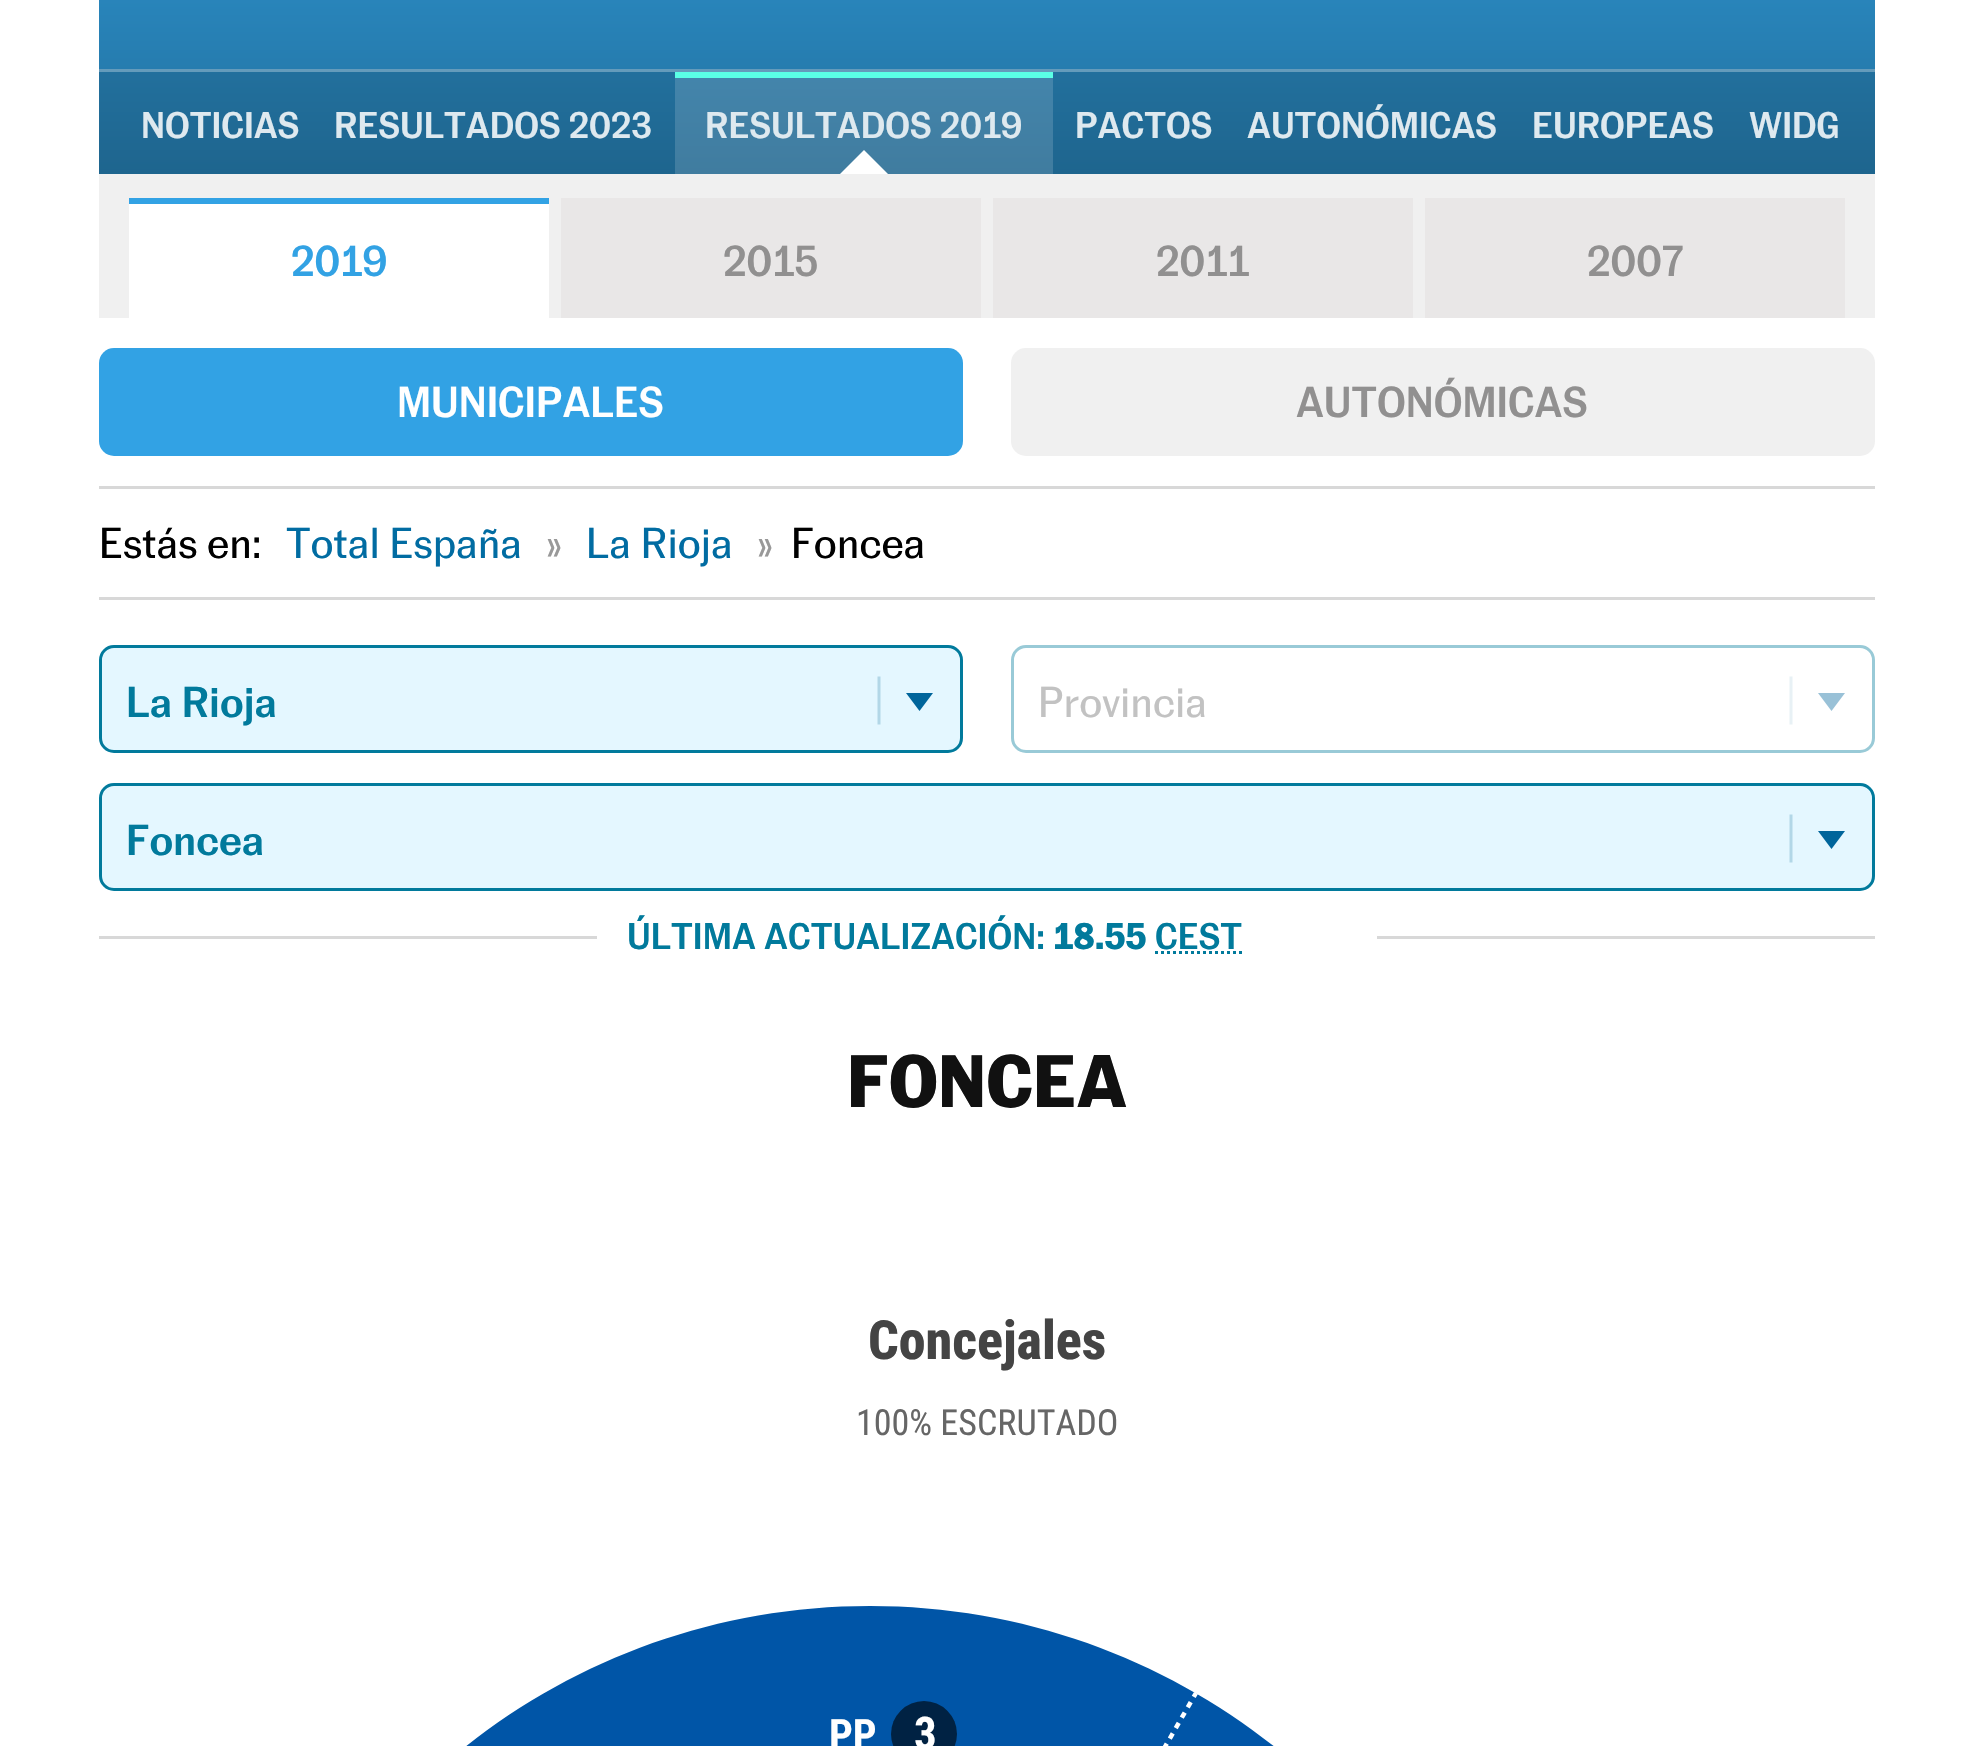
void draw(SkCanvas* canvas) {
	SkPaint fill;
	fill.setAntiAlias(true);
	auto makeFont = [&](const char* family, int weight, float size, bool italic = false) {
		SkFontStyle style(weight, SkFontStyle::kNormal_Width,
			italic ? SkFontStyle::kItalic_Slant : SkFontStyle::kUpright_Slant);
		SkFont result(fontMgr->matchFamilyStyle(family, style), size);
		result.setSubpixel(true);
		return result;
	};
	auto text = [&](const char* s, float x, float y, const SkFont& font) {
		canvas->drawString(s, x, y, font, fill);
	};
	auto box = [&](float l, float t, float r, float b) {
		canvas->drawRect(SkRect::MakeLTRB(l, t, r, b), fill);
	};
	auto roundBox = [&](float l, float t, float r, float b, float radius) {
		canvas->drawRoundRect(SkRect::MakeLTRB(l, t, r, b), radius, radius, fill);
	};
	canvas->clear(0xFFFFFFFF);
	{
		const SkColor colors[] = {0xFF2C8DC6, 0xFF21709E};
		const float stops[] = {0, 1};
		const SkPoint ends[] = {{987, -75}, {987, 174}};
		fill.setShader(SkGradientShader::MakeLinear(ends, colors, stops, 2, SkTileMode::kClamp));
		fill.setAlpha(255);
	}
	box(99, 0, 1875, 69);
	{
		const SkColor colors[] = {0xFF287FB2, 0xFF1E658E};
		const float stops[] = {0, 1};
		const SkPoint ends[] = {{987, -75}, {987, 174}};
		fill.setShader(SkGradientShader::MakeLinear(ends, colors, stops, 2, SkTileMode::kClamp));
		fill.setAlpha(255);
	}
	box(99, 72, 1875, 174);
	{
		const SkColor colors[] = {0xFF4892BE, 0xFF407C9F};
		const float stops[] = {0, 1};
		const SkPoint ends[] = {{987, -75}, {987, 174}};
		fill.setShader(SkGradientShader::MakeLinear(ends, colors, stops, 2, SkTileMode::kClamp));
		fill.setAlpha(255);
	}
	box(675, 78, 1053, 174);
	fill.setShader(nullptr);
	fill.setColor(0xFF649BBB);
	box(99, 69, 1875, 72);
	fill.setColor(0xFF5AFFE6);
	box(675, 72, 1053, 78);
	fill.setColor(0xFFFFFFFF);
	canvas->drawPath(SkPathBuilder().moveTo(888, 174).lineTo(840, 174).lineTo(864, 150).close().detach(), fill);
	fill.setColor(0xFFF0F0F0);
	box(99, 174, 1875, 318);
	fill.setColor(0xFFFFFFFF);
	box(129, 204, 549, 318);
	fill.setColor(0xFF32A2E4);
	box(129, 198, 549, 204);
	fill.setColor(0xFFE9E7E7);
	box(561, 198, 981, 318);
	box(993, 198, 1413, 318);
	box(1425, 198, 1845, 318);
	fill.setColor(0xFF32A2E4);
	roundBox(99, 348, 963, 456, 15);
	fill.setColor(0xFFF0F0F0);
	roundBox(1011, 348, 1875, 456, 15);
	fill.setColor(0xFFD8D8D8);
	box(99, 486, 1875, 489);
	box(99, 597, 1875, 600);
	box(99, 936, 1875, 939);
	fill.setColor(0xFFFFFFFF);
	box(597, 936, 1377, 939);
	fill.setStyle(SkPaint::kStroke_Style);
	fill.setStrokeWidth(3);
	fill.setColor(0xFF017A9C);
	fill.setPathEffect(SkDashPathEffect::Make({{3, 3}}, 0));
	canvas->drawPath(SkPathBuilder().moveTo(1155, 952.5f).lineTo(1242, 952.5f).detach(), fill);
	fill.setPathEffect(nullptr);
	fill.setStyle(SkPaint::kFill_Style);
	fill.setColor(0xFFE4F7FF);
	roundBox(99, 645, 963, 753, 15);
	fill.setStyle(SkPaint::kStroke_Style);
	fill.setStrokeCap(SkPaint::kSquare_Cap);
	fill.setColor(0xFFB2D7E7);
	canvas->drawPath(SkPathBuilder().moveTo(879, 678).lineTo(879, 723).detach(), fill);
	fill.setStyle(SkPaint::kFill_Style);
	fill.setColor(0xFF00659B);
	canvas->drawPath(SkPathBuilder(SkPathFillType::kEvenOdd).moveTo(919.5f, 711).lineTo(933, 693).lineTo(906, 693).close().detach(), fill);
	fill.setStyle(SkPaint::kStroke_Style);
	fill.setStrokeCap(SkPaint::kButt_Cap);
	fill.setColor(0xFF017A9C);
	canvas->drawRoundRect(SkRect::MakeLTRB(100.5f, 646.5f, 961.5f, 751.5f), 13.5f, 13.5f, fill);
	fill.setStrokeCap(SkPaint::kSquare_Cap);
	fill.setColor(0xFFE8F1F5);
	canvas->drawPath(SkPathBuilder().moveTo(1791, 678).lineTo(1791, 723).detach(), fill);
	fill.setStyle(SkPaint::kFill_Style);
	fill.setColor(0xFF99C1D7);
	canvas->drawPath(SkPathBuilder(SkPathFillType::kEvenOdd).moveTo(1831.5f, 711).lineTo(1845, 693).lineTo(1818, 693).close().detach(), fill);
	fill.setStyle(SkPaint::kStroke_Style);
	fill.setStrokeCap(SkPaint::kButt_Cap);
	fill.setColor(0xFF99CAD7);
	canvas->drawRoundRect(SkRect::MakeLTRB(1012.5f, 646.5f, 1873.5f, 751.5f), 13.5f, 13.5f, fill);
	fill.setStyle(SkPaint::kFill_Style);
	fill.setColor(0xFFE4F7FF);
	roundBox(99, 783, 1875, 891, 15);
	fill.setStyle(SkPaint::kStroke_Style);
	fill.setStrokeCap(SkPaint::kSquare_Cap);
	fill.setColor(0xFFB2D7E7);
	canvas->drawPath(SkPathBuilder().moveTo(1791, 816).lineTo(1791, 861).detach(), fill);
	fill.setStyle(SkPaint::kFill_Style);
	fill.setColor(0xFF00659B);
	canvas->drawPath(SkPathBuilder(SkPathFillType::kEvenOdd).moveTo(1831.5f, 849).lineTo(1845, 831).lineTo(1818, 831).close().detach(), fill);
	fill.setStyle(SkPaint::kStroke_Style);
	fill.setStrokeCap(SkPaint::kButt_Cap);
	fill.setColor(0xFF017A9C);
	canvas->drawRoundRect(SkRect::MakeLTRB(100.5f, 784.5f, 1873.5f, 889.5f), 13.5f, 13.5f, fill);
	fill.setStyle(SkPaint::kFill_Style);
	fill.setColor(0xFF0055A7);
	canvas->drawPath(SkPathBuilder().moveTo(218, 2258).cubicTo(218, 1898, 510, 1606, 870, 1606).cubicTo(1230, 1606, 1522, 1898, 1522, 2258).lineTo(1230, 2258).cubicTo(1230, 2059, 1069, 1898, 870, 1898).cubicTo(671, 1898, 510, 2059, 510, 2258).close().detach(), fill);
	fill.setColor(0xFF002243);
	canvas->drawCircle(924, 1734, 33, fill);
	fill.setStyle(SkPaint::kStroke_Style);
	fill.setStrokeWidth(4.5f);
	fill.setColor(0xFFFFFFFF);
	fill.setPathEffect(SkDashPathEffect::Make({{6, 6}}, 0));
	canvas->drawPath(SkPathBuilder().moveTo(1050, 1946.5f).lineTo(1196, 1693).detach(), fill);
	fill.setPathEffect(nullptr);
	auto font1 = makeFont("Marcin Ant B", 500, 36);
	fill.setStyle(SkPaint::kFill_Style);
	fill.setColor(0xFFDEE9EF);
	text("NOTICIAS", 141, 138, font1);
	text("RESULTADOS 2023", 334, 138, font1);
	text("RESULTADOS 2019", 705, 138, font1);
	text("PACTOS", 1075, 138, font1);
	text("AUTONÓMICAS", 1247, 138, font1);
	text("EUROPEAS", 1532, 138, font1);
	text("WIDG", 1749, 138, font1);
	auto font2 = makeFont("Marcin Ant B", 500, 42);
	fill.setColor(0xFF32A2E4);
	text("2019", 291, 276, font2);
	fill.setColor(0xFF919090);
	text("2015", 723, 276, font2);
	text("2011", 1156, 276, font2);
	text("2007", 1587, 276, font2);
	fill.setColor(0xFFFFFFFF);
	text("MUNICIPALES", 397, 417, font2);
	fill.setColor(0xFF919090);
	text("AUTONÓMICAS", 1296, 417, font2);
	auto font3 = makeFont("Marcin Ant B", 400, 42);
	fill.setColor(0xFF000000);
	text("Estás en:", 99, 558, font3);
	fill.setColor(0xFF016CA2);
	text("Total España", 286, 558, font3);
	fill.setColor(0xFF999999);
	text("»", 547, 558, font3);
	fill.setColor(0xFF016CA2);
	text("La Rioja", 586, 558, font3);
	fill.setColor(0xFF999999);
	text("»", 758, 558, font3);
	fill.setColor(0xFF000000);
	text("Foncea", 791, 558, font3);
	fill.setColor(0xFF017A9C);
	text("ÚLTIMA ACTUALIZACIÓN:", 627, 949, font1);
	auto font4 = makeFont("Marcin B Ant", 700, 36);
	text("18.55", 1053, 949, font4);
	text("CEST", 1155, 949, font1);
	text("La Rioja", 126, 717, font2);
	fill.setColor(0xFFC2C2C2);
	text("Provincia", 1038, 717, font3);
	fill.setColor(0xFF017A9C);
	text("Foncea", 126, 855, font2);
	auto font5 = makeFont("Marcin B Ant", 700, 72);
	fill.setColor(0xFF111111);
	text("FONCEA", 847, 1107, font5);
	auto font6 = makeFont("Roboto Condensed", 800, 54);
	fill.setColor(0xFF444444);
	text("Concejales", 868, 1359, font6);
	auto font7 = makeFont("Roboto Condensed", 400, 36);
	fill.setColor(0xFF666666);
	text("100% ESCRUTADO", 856, 1435, font7);
	auto font8 = makeFont("Roboto Condensed", 700, 42);
	fill.setColor(0xFFFFFFFF);
	text("PP", 829, 1749, font8);
	auto font9 = makeFont("Roboto Condensed", 700, 45);
	text("3", 914, 1749, font9);
}
